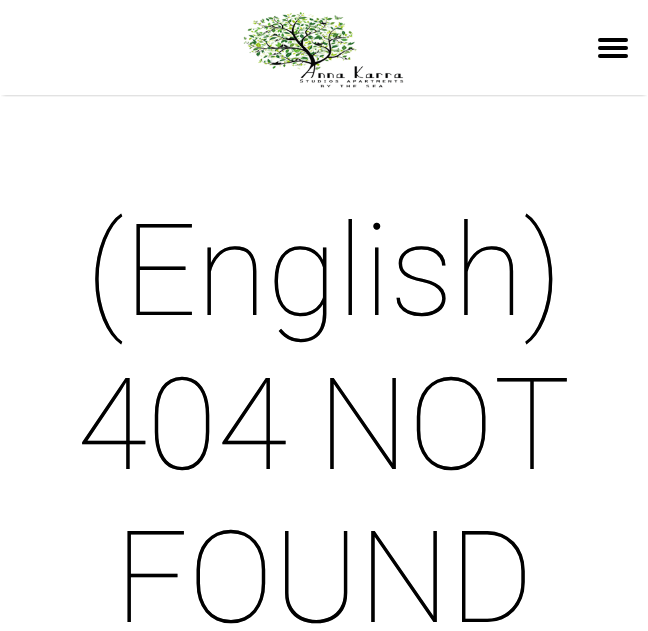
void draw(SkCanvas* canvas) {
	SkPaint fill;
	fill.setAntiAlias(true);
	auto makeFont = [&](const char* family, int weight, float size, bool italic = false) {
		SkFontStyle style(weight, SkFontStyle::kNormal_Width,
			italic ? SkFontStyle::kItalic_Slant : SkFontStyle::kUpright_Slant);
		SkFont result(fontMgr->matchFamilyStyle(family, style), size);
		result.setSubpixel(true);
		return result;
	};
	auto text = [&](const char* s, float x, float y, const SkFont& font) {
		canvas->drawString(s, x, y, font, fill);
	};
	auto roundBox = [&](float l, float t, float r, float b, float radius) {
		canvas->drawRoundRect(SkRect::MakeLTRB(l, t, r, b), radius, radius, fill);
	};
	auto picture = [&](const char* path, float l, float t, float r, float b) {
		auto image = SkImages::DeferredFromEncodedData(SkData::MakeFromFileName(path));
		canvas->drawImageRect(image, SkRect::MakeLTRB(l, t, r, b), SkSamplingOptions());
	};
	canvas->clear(0xFFFFFFFF);
	canvas->save();
	canvas->clipRect(SkRect::MakeLTRB(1, 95, 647, 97));
	fill.setColor(0xFF000000);
	fill.setMaskFilter(SkMaskFilter::MakeBlur(kNormal_SkBlurStyle, 2));
	canvas->drawRect(SkRect::MakeLTRB(3, 4, 645, 93), fill);
	fill.setMaskFilter(nullptr);
	canvas->restore();
	picture("image0.png", 243, 12, 404, 88);
	roundBox(598, 38, 628, 42, 2);
	roundBox(598, 46, 628, 50, 2);
	roundBox(598, 54, 628, 58, 2);
	auto font1 = makeFont("Roboto", 100, 128);
	text("(English)", 86, 315, font1);
	text("404 NOT", 77, 469, font1);
	text("FOUND", 115, 622, font1);
}
